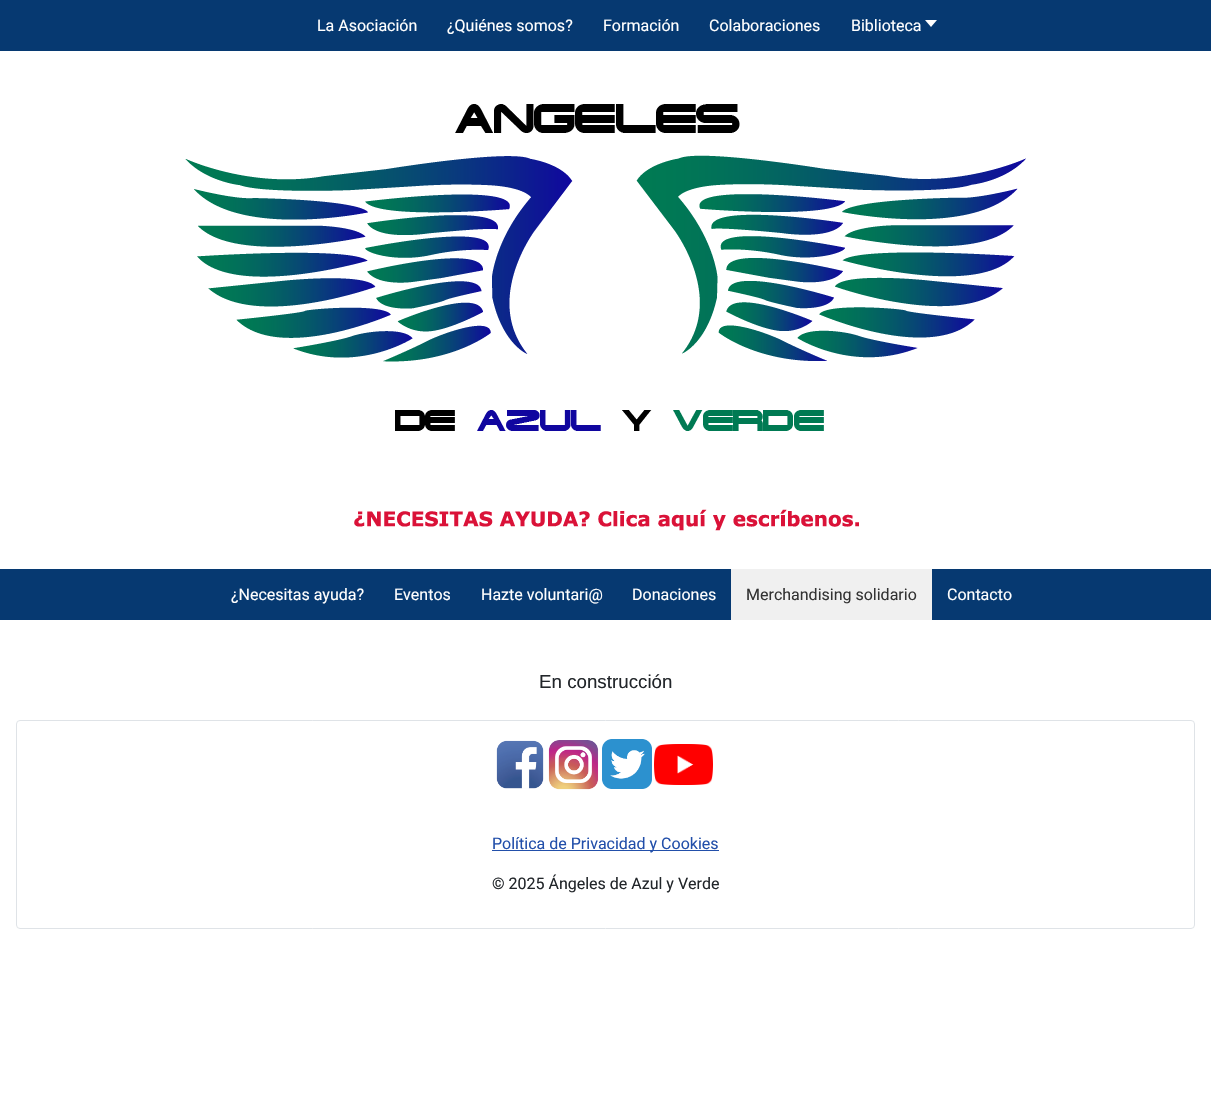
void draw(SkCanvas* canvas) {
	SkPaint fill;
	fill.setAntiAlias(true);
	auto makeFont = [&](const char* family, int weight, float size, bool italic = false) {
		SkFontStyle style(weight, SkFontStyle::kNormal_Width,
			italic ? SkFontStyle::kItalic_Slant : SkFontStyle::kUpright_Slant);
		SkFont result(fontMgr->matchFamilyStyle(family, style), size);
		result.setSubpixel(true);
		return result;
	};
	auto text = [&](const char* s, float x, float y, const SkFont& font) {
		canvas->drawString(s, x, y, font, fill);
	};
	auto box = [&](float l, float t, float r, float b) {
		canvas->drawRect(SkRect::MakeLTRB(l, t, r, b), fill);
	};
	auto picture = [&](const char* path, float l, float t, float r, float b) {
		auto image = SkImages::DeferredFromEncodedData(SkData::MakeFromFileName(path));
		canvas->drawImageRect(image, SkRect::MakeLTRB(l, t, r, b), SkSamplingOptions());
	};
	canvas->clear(0xFFFFFFFF);
	fill.setColor(0xFF063971);
	box(0, 0, 1211, 51);
	fill.setColor(0xFFFFFFFF);
	canvas->drawPath(SkPathBuilder().moveTo(925, 20).lineTo(937, 20).lineTo(931, 27).close().detach(), fill);
	picture("image0.png", 185, 104, 1026, 431);
	picture("image1.png", 354, 509, 859, 531);
	fill.setColor(0xFF063971);
	box(0, 569, 1211, 620);
	fill.setColor(0xFFF0F0F0);
	box(731, 569, 932, 620);
	fill.setStyle(SkPaint::kStroke_Style);
	fill.setStrokeWidth(1);
	fill.setColor(0xFFDFE3E7);
	canvas->drawRoundRect(SkRect::MakeLTRB(16.5f, 720.5f, 1194.5f, 928.5f), 3.5f, 3.5f, fill);
	picture("image2.png", 496, 740, 544, 789);
	picture("image3.png", 548, 740, 599, 790);
	picture("image4.png", 602, 739, 652, 789);
	picture("image5.png", 654, 744, 713, 785);
	fill.setStyle(SkPaint::kFill_Style);
	fill.setColor(0xFF224FAA);
	box(492, 850, 719, 851);
	auto font1 = makeFont("Roboto", 400, 16);
	fill.setColor(0xFFFFFFFF);
	text("La Asociación", 317, 31, font1);
	text("¿Quiénes somos?", 447, 31, font1);
	text("Formación", 603, 31, font1);
	text("Colaboraciones", 709, 31, font1);
	text("Biblioteca", 851, 31, font1);
	text("¿Necesitas ayuda?", 231, 600, font1);
	text("Eventos", 394, 600, font1);
	text("Hazte voluntari@", 481, 600, font1);
	text("Donaciones", 632, 600, font1);
	fill.setColor(0xFF333333);
	text("Merchandising solidario", 746, 600, font1);
	fill.setColor(0xFFFFFFFF);
	text("Contacto", 947, 600, font1);
	auto font2 = makeFont("Liberation Sans", 400, 18.75f);
	fill.setColor(0xFF22262A);
	text("En construcción", 539, 688, font2);
	fill.setColor(0xFF224FAA);
	text("Política de Privacidad y Cookies", 492, 849, font1);
	fill.setColor(0xFF22262A);
	text("© 2025 Ángeles de Azul y Verde", 492, 889, font1);
}
